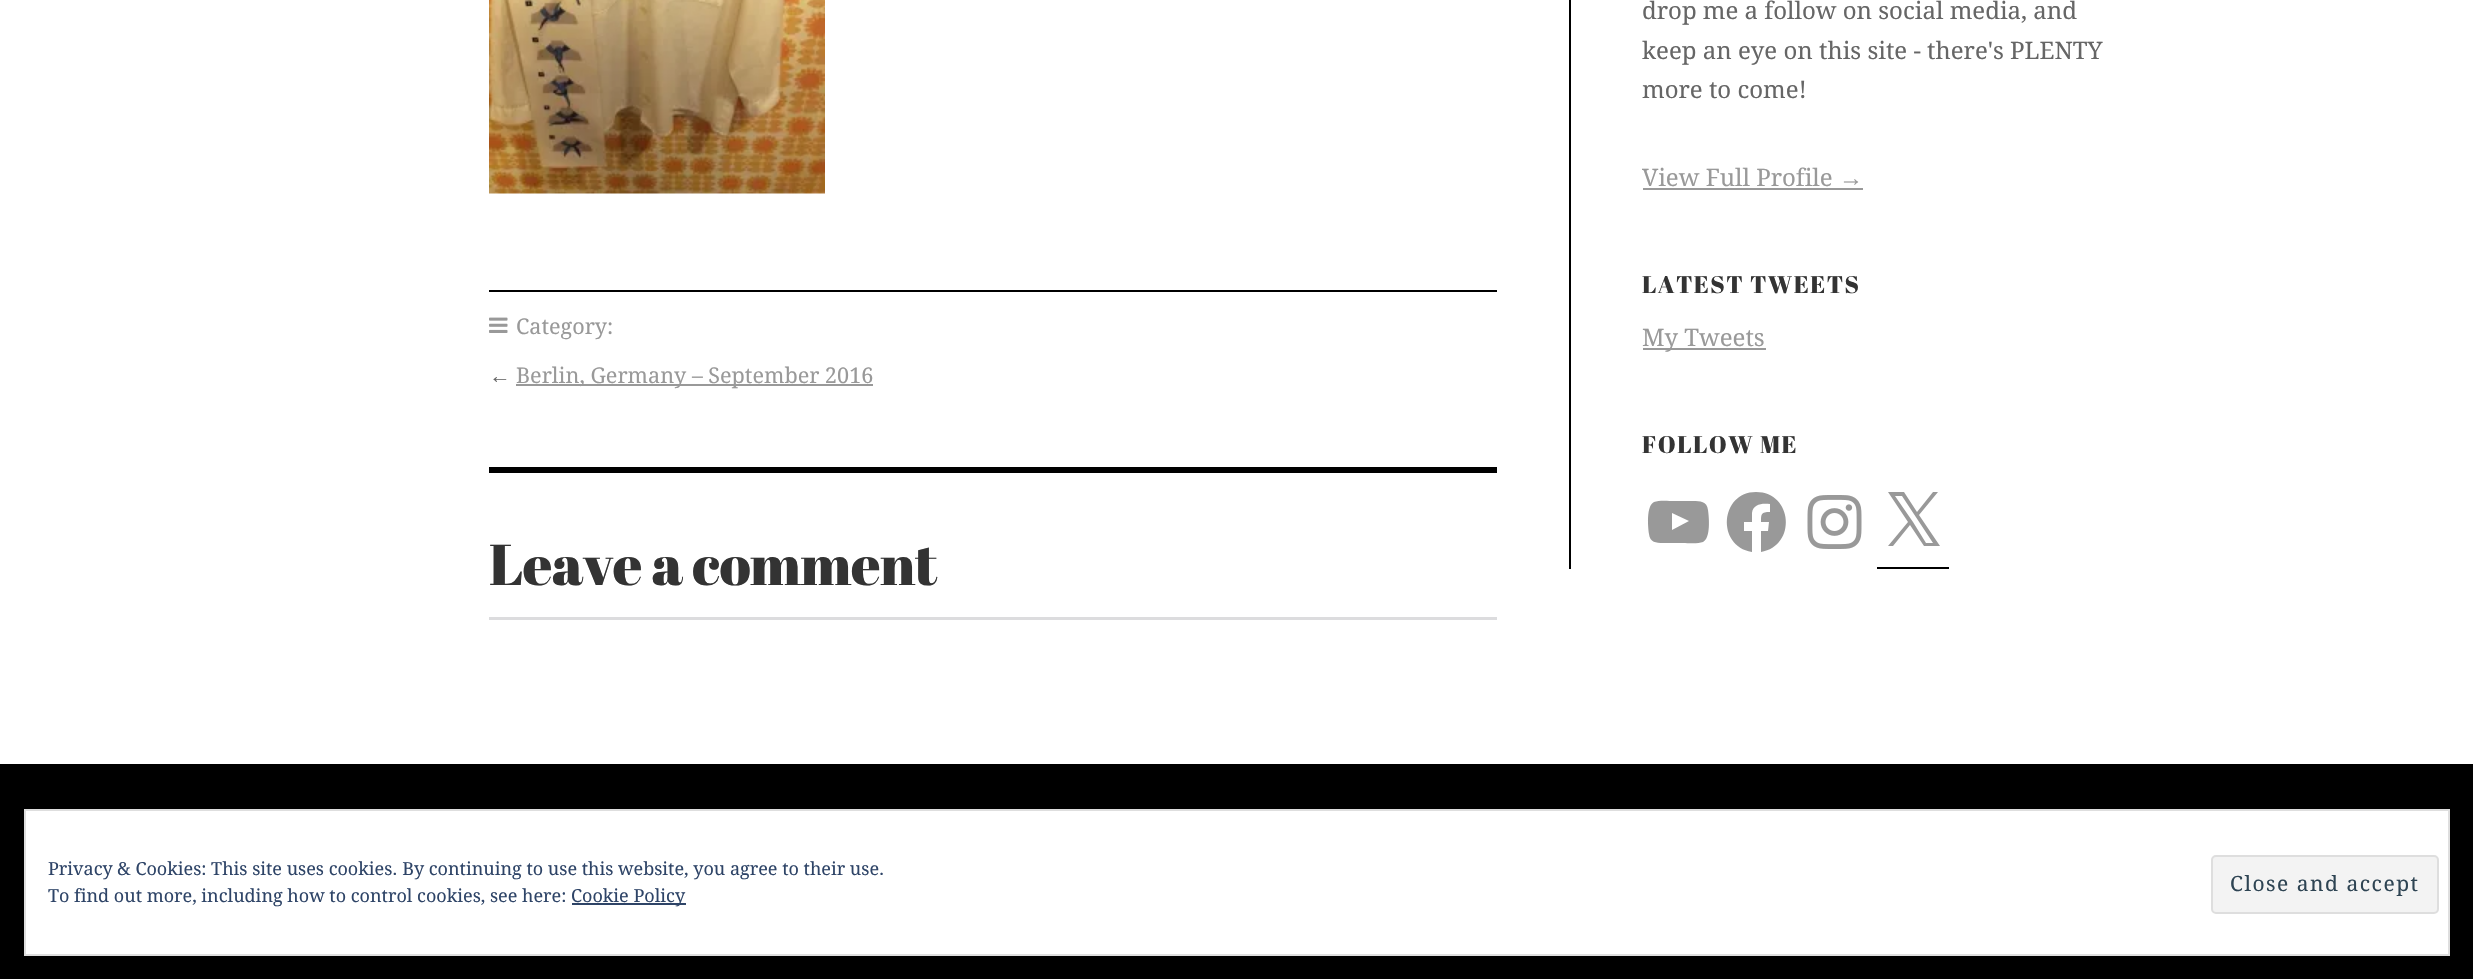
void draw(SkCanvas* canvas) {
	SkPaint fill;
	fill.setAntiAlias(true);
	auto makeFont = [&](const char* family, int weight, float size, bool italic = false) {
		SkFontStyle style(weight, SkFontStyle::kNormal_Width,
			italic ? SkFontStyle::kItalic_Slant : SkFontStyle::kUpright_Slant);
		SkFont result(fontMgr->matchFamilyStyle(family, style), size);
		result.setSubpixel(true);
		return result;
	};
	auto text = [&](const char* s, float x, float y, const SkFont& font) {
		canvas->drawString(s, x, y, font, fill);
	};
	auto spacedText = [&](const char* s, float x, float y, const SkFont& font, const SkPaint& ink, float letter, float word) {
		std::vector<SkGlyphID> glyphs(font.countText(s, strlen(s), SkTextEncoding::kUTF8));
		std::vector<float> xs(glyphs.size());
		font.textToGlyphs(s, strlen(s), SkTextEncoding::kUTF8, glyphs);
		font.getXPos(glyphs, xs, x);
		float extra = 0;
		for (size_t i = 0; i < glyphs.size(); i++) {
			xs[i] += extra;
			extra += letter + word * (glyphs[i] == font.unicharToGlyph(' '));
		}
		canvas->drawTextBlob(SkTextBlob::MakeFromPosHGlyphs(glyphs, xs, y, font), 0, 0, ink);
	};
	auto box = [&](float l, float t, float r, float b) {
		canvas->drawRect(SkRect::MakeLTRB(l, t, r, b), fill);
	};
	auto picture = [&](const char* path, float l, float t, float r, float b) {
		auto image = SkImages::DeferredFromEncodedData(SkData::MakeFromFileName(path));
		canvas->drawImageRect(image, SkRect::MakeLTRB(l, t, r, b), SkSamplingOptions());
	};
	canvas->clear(0xFFFFFFFF);
	picture("image0.png", 489, 0, 825, 194);
	fill.setColor(0xFF000000);
	box(489, 290, 1497, 292);
	picture("image1.png", 489, 317, 508, 333);
	fill.setColor(0xFF999999);
	box(516, 384, 873, 386);
	fill.setColor(0xFF000000);
	box(489, 467, 1497, 473);
	fill.setColor(0xFFDCDCDE);
	box(489, 617, 1497, 620);
	fill.setColor(0xFF000000);
	box(1569, 0, 1571, 569);
	fill.setColor(0xFF999999);
	box(1643, 188, 1863, 190);
	box(1643, 348, 1766, 350);
	canvas->drawPath(SkPathBuilder().moveTo(1708, 510).cubicTo(1707, 501, 1700, 501, 1693, 501).lineTo(1674, 501).cubicTo(1669, 501, 1659, 500, 1654, 502).cubicTo(1646, 506, 1648, 527, 1649, 534).cubicTo(1650, 544, 1659, 543, 1667, 543).lineTo(1683, 543).cubicTo(1688, 543, 1698, 544, 1703, 542).cubicTo(1711, 538, 1709, 517, 1708, 510).close().moveTo(1672, 530).lineTo(1672, 513).lineTo(1689, 521).close().detach(), fill);
	canvas->drawPath(SkPathBuilder().moveTo(1756, 492).cubicTo(1720, 492, 1716, 546, 1752, 552).lineTo(1752, 531).lineTo(1744, 531).lineTo(1744, 522).lineTo(1752, 522).lineTo(1752, 513).cubicTo(1753, 504, 1762, 503, 1770, 504).lineTo(1770, 512).cubicTo(1761, 512, 1761, 514, 1761, 522).lineTo(1769, 522).lineTo(1768, 531).lineTo(1761, 531).lineTo(1761, 552).cubicTo(1797, 546, 1793, 492, 1756, 492).close().detach(), fill);
	picture("image2.png", 1807, 495, 1862, 549);
	fill.setColor(0xFF000000);
	box(1877, 567, 1949, 569);
	fill.setColor(0xFF999999);
	canvas->drawPath(SkPathBuilder().moveTo(1919, 515).lineTo(1938, 492).lineTo(1933, 492).lineTo(1917, 512).lineTo(1904, 492).lineTo(1888, 492).lineTo(1908, 522).lineTo(1888, 546).lineTo(1893, 546).lineTo(1910, 525).lineTo(1924, 546).lineTo(1940, 546).close().moveTo(1913, 522).lineTo(1895, 496).lineTo(1902, 496).lineTo(1933, 543).lineTo(1926, 543).close().detach(), fill);
	fill.setColor(0xFF000000);
	box(0, 764, 2473, 979);
	fill.setColor(0xFFFFFFFF);
	canvas->drawRect(SkRect::MakeLTRB(25, 810, 2449, 955), fill);
	fill.setStyle(SkPaint::kStroke_Style);
	fill.setStrokeWidth(2);
	fill.setColor(0xFFDEDEDE);
	canvas->drawRect(SkRect::MakeLTRB(25, 810, 2449, 955), fill);
	fill.setStyle(SkPaint::kFill_Style);
	fill.setColor(0xFF2E4467);
	box(572, 903, 686, 905);
	fill.setColor(0xFFF3F3F3);
	canvas->drawRoundRect(SkRect::MakeLTRB(2212, 856, 2438, 913), 4, 4, fill);
	fill.setStyle(SkPaint::kStroke_Style);
	fill.setColor(0xFFDEDEDE);
	canvas->drawRoundRect(SkRect::MakeLTRB(2212, 856, 2438, 913), 4, 4, fill);
	auto font1 = makeFont("Droid Serif", 400, 21.6f);
	fill.setStyle(SkPaint::kFill_Style);
	fill.setColor(0xFF999999);
	text("Category:", 516, 334, font1);
	auto font2 = makeFont("Liberation Serif", 400, 21.6f);
	fill.setColor(0xFF666666);
	text("←", 489, 383, font2);
	fill.setColor(0xFF999999);
	text("Berlin, Germany – September 2016", 516, 383, font1);
	auto font3 = makeFont("Abril Fatface", 400, 57.5f);
	fill.setColor(0xFF333333);
	spacedText("Leave a comment", 489, 585, font3, fill, -0.6f, 0);
	auto font4 = makeFont("Droid Serif", 400, 24);
	fill.setColor(0xFF666666);
	text("drop me a follow on social media, and", 1642, 19, font4);
	text("keep an eye on this site - there's PLENTY", 1642, 59, font4);
	text("more to come!", 1642, 98, font4);
	fill.setColor(0xFF999999);
	text("View Full Profile", 1642, 186, font4);
	auto font5 = makeFont("Liberation Serif", 400, 24);
	text("→", 1839, 186, font5);
	auto font6 = makeFont("Abril Fatface", 400, 24);
	fill.setColor(0xFF333333);
	spacedText("LATEST TWEETS", 1642, 293, font6, fill, 1.5f, 0);
	fill.setColor(0xFF999999);
	text("My Tweets", 1642, 346, font4);
	fill.setColor(0xFF333333);
	spacedText("FOLLOW ME", 1642, 453, font6, fill, 1.5f, 0);
	auto font7 = makeFont("Droid Serif", 400, 18);
	fill.setColor(0xFF2E4467);
	text("Privacy & Cookies: This site uses cookies. By continuing to use this website, you agree to their use.", 48, 875, font7);
	text("To find out more, including how to control cookies, see here:", 48, 902, font7);
	text("Cookie Policy", 571, 902, font7);
	auto font8 = makeFont("Droid Serif", 400, 21);
	fill.setColor(0xFF2E4453);
	spacedText("Close and accept", 2230, 891, font8, fill, 1.5f, 0);
}
